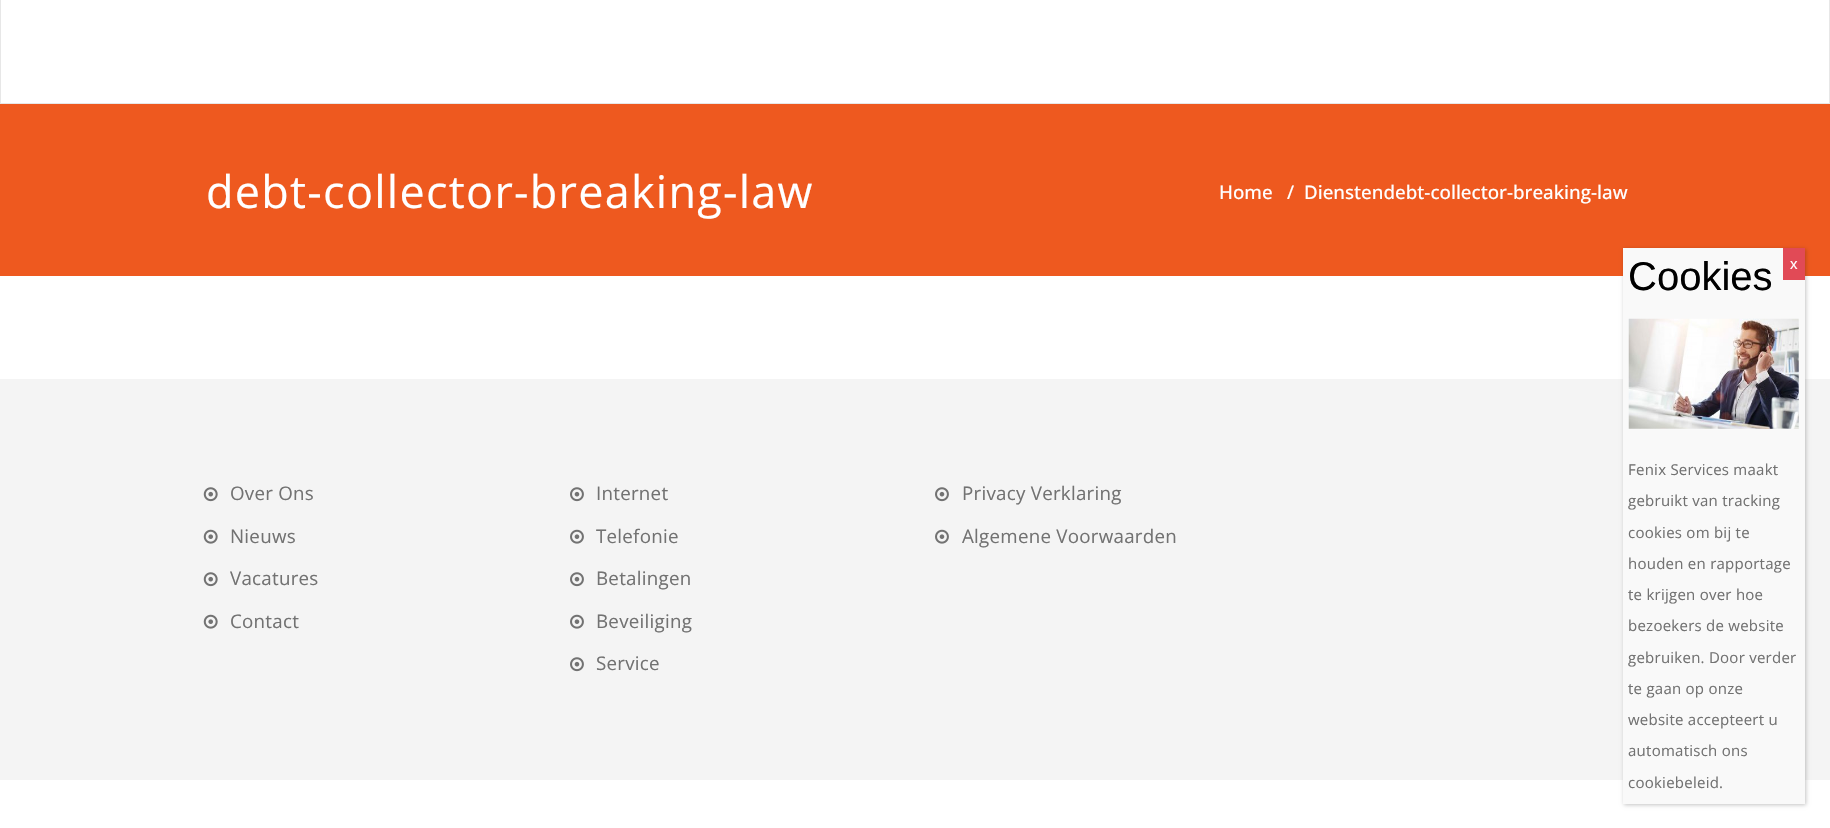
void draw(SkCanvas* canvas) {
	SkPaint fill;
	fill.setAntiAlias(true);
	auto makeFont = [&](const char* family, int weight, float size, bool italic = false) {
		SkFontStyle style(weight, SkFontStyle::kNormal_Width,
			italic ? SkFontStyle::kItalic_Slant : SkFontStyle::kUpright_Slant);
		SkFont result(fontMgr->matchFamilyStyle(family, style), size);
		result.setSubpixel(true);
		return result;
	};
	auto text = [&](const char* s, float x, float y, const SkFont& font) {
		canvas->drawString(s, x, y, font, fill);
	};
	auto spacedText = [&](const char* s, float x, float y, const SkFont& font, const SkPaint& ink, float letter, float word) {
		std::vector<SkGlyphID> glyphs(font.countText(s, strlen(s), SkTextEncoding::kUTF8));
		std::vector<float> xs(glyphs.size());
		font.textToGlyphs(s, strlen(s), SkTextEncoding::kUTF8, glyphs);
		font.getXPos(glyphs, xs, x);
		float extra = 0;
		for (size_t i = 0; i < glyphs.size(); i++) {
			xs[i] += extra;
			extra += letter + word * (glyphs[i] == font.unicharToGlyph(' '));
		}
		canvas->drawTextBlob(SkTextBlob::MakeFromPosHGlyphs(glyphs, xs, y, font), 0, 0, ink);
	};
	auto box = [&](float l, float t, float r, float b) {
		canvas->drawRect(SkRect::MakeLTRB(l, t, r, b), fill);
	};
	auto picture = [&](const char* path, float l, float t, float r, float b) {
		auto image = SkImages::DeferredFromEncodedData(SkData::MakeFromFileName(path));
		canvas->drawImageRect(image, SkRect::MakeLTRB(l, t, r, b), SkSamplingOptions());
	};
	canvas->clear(0xFFFFFFFF);
	fill.setStyle(SkPaint::kStroke_Style);
	fill.setStrokeWidth(1);
	fill.setColor(0xFFE7E7E7);
	canvas->drawRect(SkRect::MakeLTRB(0.5f, -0.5f, 1829.5f, 103.5f), fill);
	fill.setStyle(SkPaint::kFill_Style);
	fill.setColor(0xFFEE591F);
	box(0, 104, 1830, 276);
	fill.setColor(0xFFF4F4F4);
	box(0, 379, 1830, 780);
	picture("image0.png", 203, 487, 218, 502);
	picture("image1.png", 203, 529, 218, 544);
	picture("image0.png", 203, 572, 218, 587);
	picture("image1.png", 203, 614, 218, 629);
	picture("image2.png", 570, 487, 584, 502);
	picture("image3.png", 570, 529, 584, 544);
	picture("image2.png", 570, 572, 584, 587);
	picture("image3.png", 570, 614, 584, 629);
	picture("image2.png", 570, 657, 584, 672);
	picture("image2.png", 935, 487, 949, 502);
	picture("image3.png", 935, 529, 949, 544);
	fill.setColor(0x3B020202);
	fill.setMaskFilter(SkMaskFilter::MakeBlur(kNormal_SkBlurStyle, 2));
	canvas->drawRect(SkRect::MakeLTRB(1624, 249, 1806, 805), fill);
	fill.setMaskFilter(nullptr);
	fill.setColor(0xFFF9F9F9);
	box(1623, 248, 1805, 804);
	fill.setColor(0xFFE14A56);
	box(1783, 248, 1805, 280);
	picture("image4.png", 1628, 318, 1799, 429);
	auto font1 = makeFont("Open Sans", 400, 45);
	fill.setColor(0xFFFFFFFF);
	spacedText("debt-collector-breaking-law", 206, 208, font1, fill, 1.25f, 0);
	auto font2 = makeFont("Open Sans", 500, 18.75f);
	text("Home", 1219, 199, font2);
	text("/", 1287, 199, font2);
	text("Dienstendebt-collector-breaking-law", 1304, 199, font2);
	auto font3 = makeFont("Open Sans", 400, 18.75f);
	fill.setColor(0xFF727272);
	spacedText("Over Ons", 230, 500, font3, fill, 0.25f, 0);
	spacedText("Nieuws", 230, 543, font3, fill, 0.25f, 0);
	spacedText("Vacatures", 230, 585, font3, fill, 0.25f, 0);
	spacedText("Contact", 230, 628, font3, fill, 0.25f, 0);
	spacedText("Internet", 596, 500, font3, fill, 0.25f, 0);
	spacedText("Telefonie", 596, 543, font3, fill, 0.25f, 0);
	spacedText("Betalingen", 596, 585, font3, fill, 0.25f, 0);
	spacedText("Beveiliging", 596, 628, font3, fill, 0.25f, 0);
	spacedText("Service", 596, 670, font3, fill, 0.25f, 0);
	spacedText("Privacy Verklaring", 962, 500, font3, fill, 0.25f, 0);
	spacedText("Algemene Voorwaarden", 962, 543, font3, fill, 0.25f, 0);
	auto font4 = makeFont("Liberation Sans", 400, 40);
	fill.setColor(0xFF000000);
	text("Cookies", 1628, 290, font4);
	auto font5 = makeFont("Liberation Sans", 400, 15);
	fill.setColor(0xFFFFFFFF);
	text("x", 1790, 269, font5);
	auto font6 = makeFont("Open Sans", 400, 15);
	fill.setColor(0xFF727272);
	spacedText("Fenix Services maakt", 1628, 475, font6, fill, 0.25f, 0);
	spacedText("gebruikt van tracking", 1628, 506, font6, fill, 0.25f, 0);
	spacedText("cookies om bij te", 1628, 538, font6, fill, 0.25f, 0);
	spacedText("houden en rapportage", 1628, 569, font6, fill, 0.25f, 0);
	spacedText("te krijgen over hoe", 1628, 600, font6, fill, 0.25f, 0);
	spacedText("bezoekers de website", 1628, 631, font6, fill, 0.25f, 0);
	spacedText("gebruiken. Door verder", 1628, 663, font6, fill, 0.25f, 0);
	spacedText("te gaan op onze", 1628, 694, font6, fill, 0.25f, 0);
	spacedText("website accepteert u", 1628, 725, font6, fill, 0.25f, 0);
	spacedText("automatisch ons", 1628, 756, font6, fill, 0.25f, 0);
	spacedText("cookiebeleid.", 1628, 788, font6, fill, 0.25f, 0);
}
